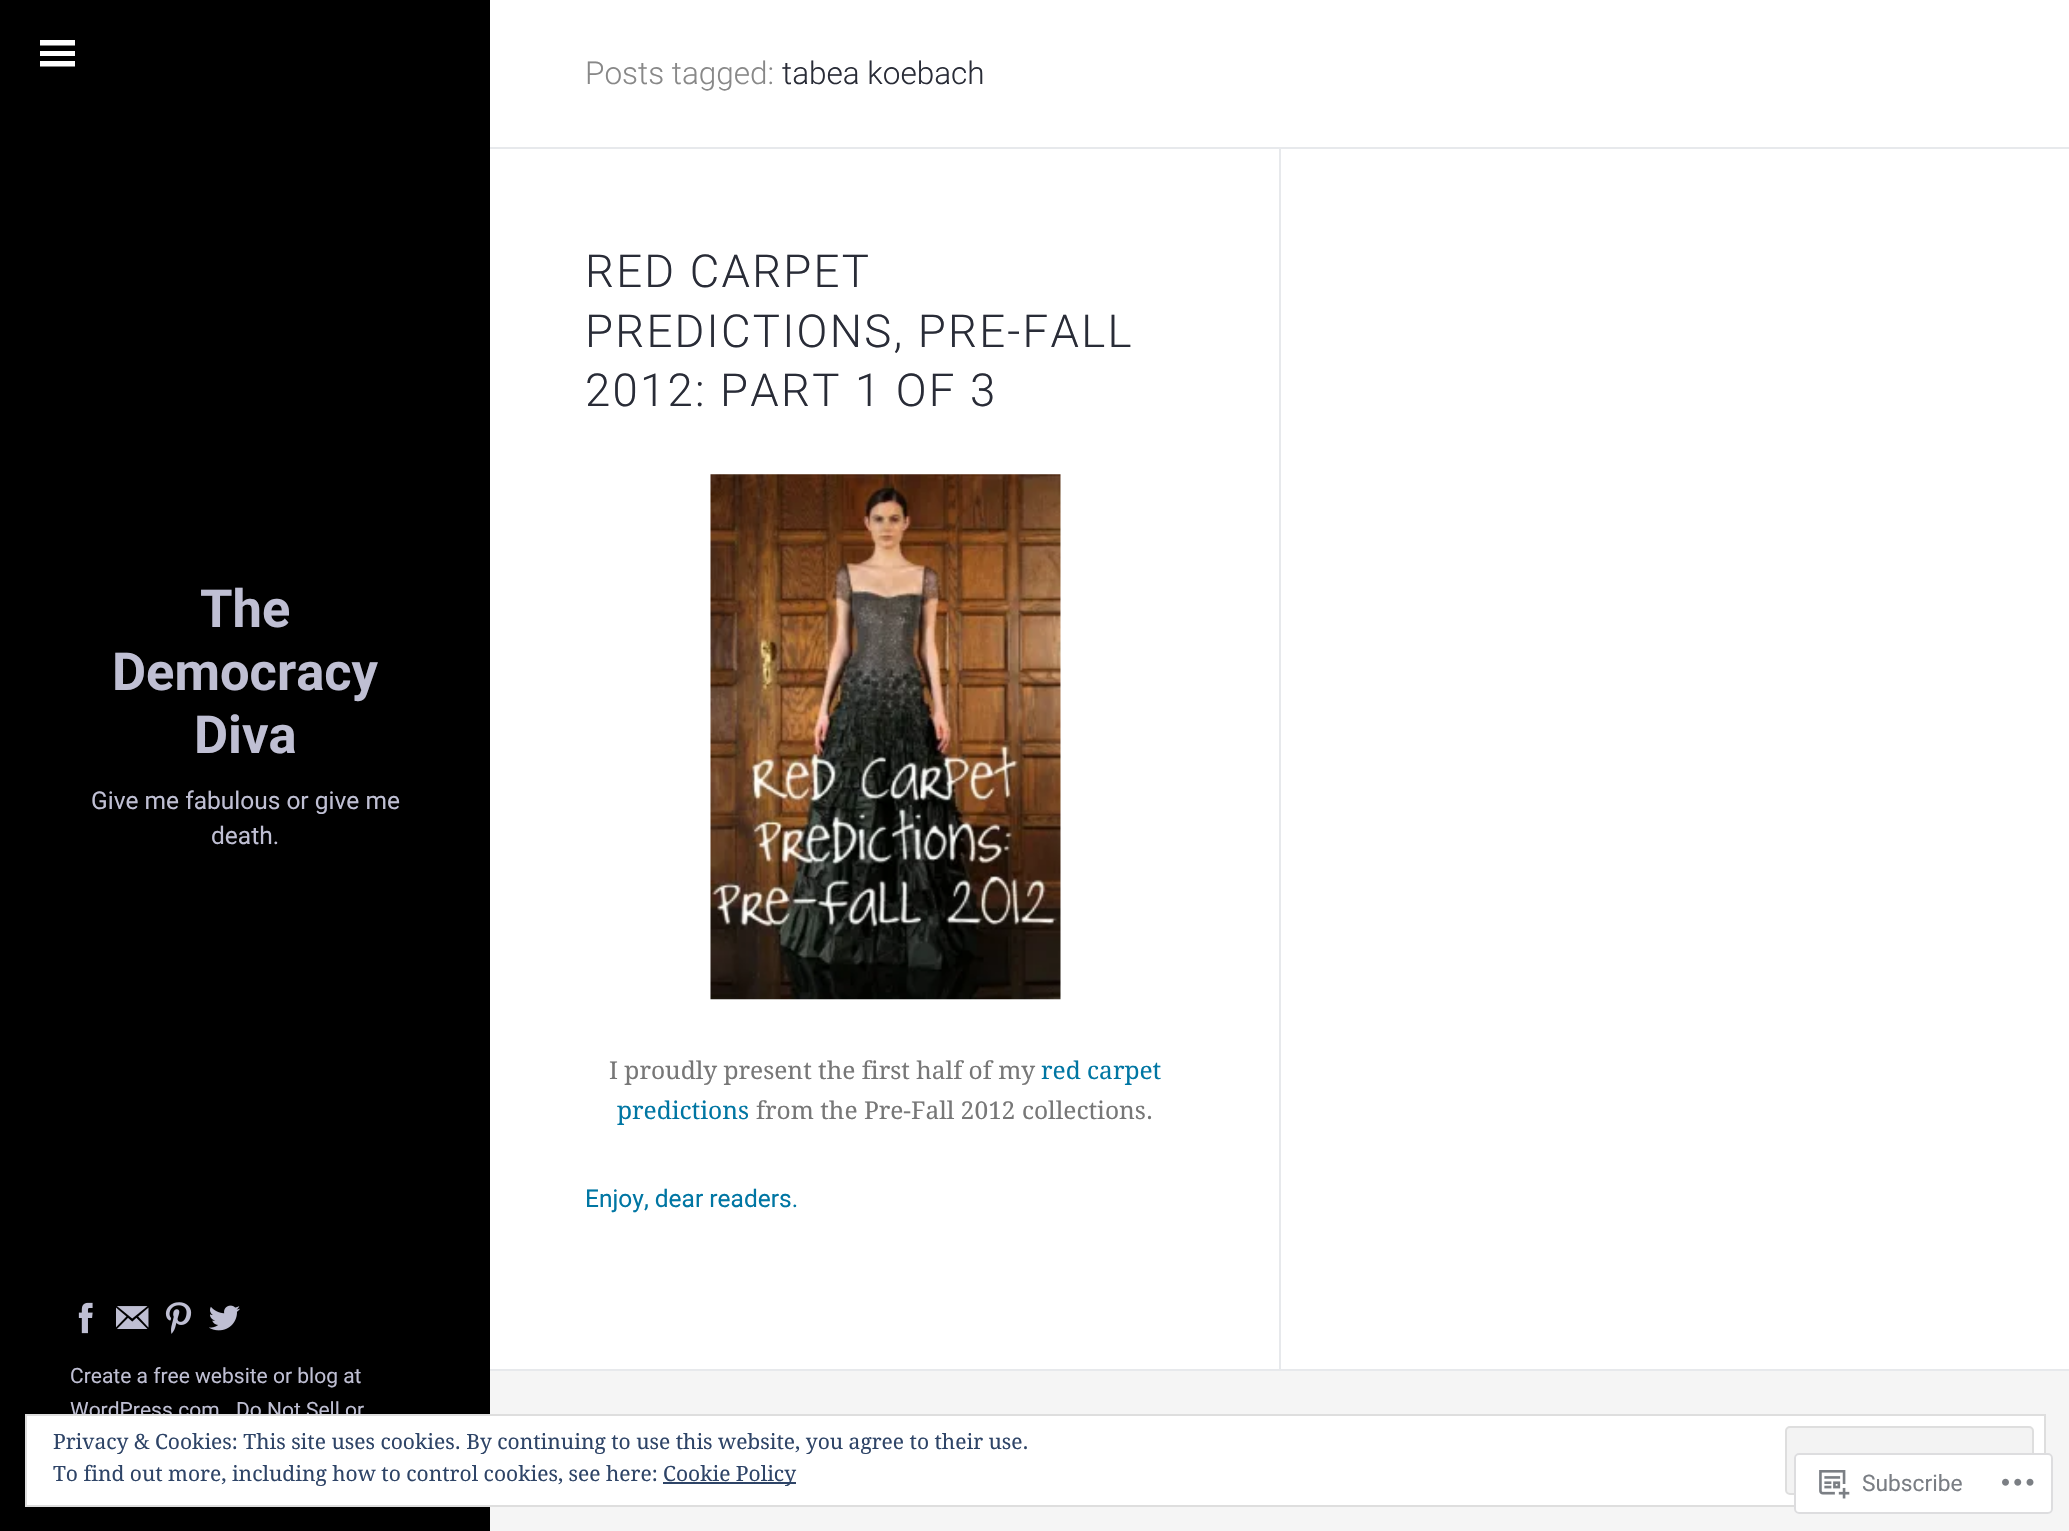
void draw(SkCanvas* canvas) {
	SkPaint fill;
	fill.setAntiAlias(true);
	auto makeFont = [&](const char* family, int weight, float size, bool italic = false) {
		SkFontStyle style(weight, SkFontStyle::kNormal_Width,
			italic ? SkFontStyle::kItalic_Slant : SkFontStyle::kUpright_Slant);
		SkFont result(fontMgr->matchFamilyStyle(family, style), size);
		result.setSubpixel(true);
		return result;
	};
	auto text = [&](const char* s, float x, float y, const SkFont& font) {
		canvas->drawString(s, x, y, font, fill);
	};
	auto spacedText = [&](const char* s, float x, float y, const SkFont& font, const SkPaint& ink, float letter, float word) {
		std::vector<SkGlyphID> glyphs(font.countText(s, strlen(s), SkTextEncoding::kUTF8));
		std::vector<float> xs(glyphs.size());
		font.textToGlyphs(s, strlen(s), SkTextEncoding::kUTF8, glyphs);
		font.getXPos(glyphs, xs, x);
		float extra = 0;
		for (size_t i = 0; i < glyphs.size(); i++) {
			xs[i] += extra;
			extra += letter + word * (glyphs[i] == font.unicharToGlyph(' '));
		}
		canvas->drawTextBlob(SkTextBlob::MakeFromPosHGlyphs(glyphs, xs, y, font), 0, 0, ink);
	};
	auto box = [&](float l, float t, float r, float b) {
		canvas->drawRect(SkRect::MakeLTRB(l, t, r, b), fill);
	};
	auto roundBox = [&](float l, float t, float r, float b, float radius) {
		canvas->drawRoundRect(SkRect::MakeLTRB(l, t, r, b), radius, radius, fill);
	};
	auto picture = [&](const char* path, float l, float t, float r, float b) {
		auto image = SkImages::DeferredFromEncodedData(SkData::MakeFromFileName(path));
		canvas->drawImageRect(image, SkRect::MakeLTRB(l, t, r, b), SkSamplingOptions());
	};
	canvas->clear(0xFFF5F5F5);
	fill.setColor(0xFF000000);
	box(0, 0, 490, 1531);
	fill.setColor(0xFFFFFFFF);
	canvas->drawPath(SkPathBuilder().moveTo(40, 45.5f).lineTo(75, 45.5f).lineTo(75, 40).lineTo(40, 40).close().moveTo(40, 56).lineTo(75, 56).lineTo(75, 51).lineTo(40, 51).close().moveTo(40, 66.5f).lineTo(75, 66.5f).lineTo(75, 61).lineTo(40, 61).close().detach(), fill);
	picture("image0.png", 78, 1302, 93, 1334);
	picture("image1.png", 116, 1306, 149, 1329);
	picture("image2.png", 165, 1302, 192, 1334);
	picture("image3.png", 209, 1305, 240, 1331);
	box(490, 0, 2069, 147);
	fill.setColor(0xFFE7E9EC);
	box(490, 147, 2069, 149);
	fill.setColor(0xFFFFFFFF);
	box(490, 149, 2069, 1369);
	picture("image4.png", 710, 474, 1061, 1000);
	fill.setColor(0xFFE7E9EC);
	box(1279, 149, 1281, 1377);
	fill.setColor(0xFFF5F5F5);
	box(1279, 1371, 1281, 1377);
	fill.setColor(0xFFE7E9EC);
	box(490, 1369, 2069, 1371);
	auto font1 = makeFont("Roboto", 700, 52.5f);
	fill.setColor(0xFFBFBFD3);
	text("The", 200, 627, font1);
	text("Democracy", 112, 690, font1);
	text("Diva", 194, 753, font1);
	auto font2 = makeFont("Roboto", 400, 24.5f);
	text("Give me fabulous or give me", 91, 809, font2);
	text("death.", 211, 844, font2);
	auto font3 = makeFont("Roboto", 400, 21);
	text("Create a free website or blog at", 70, 1383, font3);
	text("WordPress.com", 70, 1417, font3);
	text("Do Not Sell or", 236, 1417, font3);
	auto font4 = makeFont("Roboto", 300, 31.5f);
	fill.setColor(0xFF888888);
	text("Posts tagged:", 585, 84, font4);
	fill.setColor(0xFF292C37);
	text("tabea koebach", 782, 84, font4);
	auto font5 = makeFont("Roboto", 300, 45.5f);
	spacedText("RED CARPET", 585, 287, font5, fill, 2.25f, 0);
	spacedText("PREDICTIONS, PRE-FALL", 585, 347, font5, fill, 2.25f, 0);
	spacedText("2012: PART 1 OF 3", 585, 406, font5, fill, 2.25f, 0);
	auto font6 = makeFont("Droid Serif", 400, 24.5f);
	fill.setColor(0xFF777777);
	text("I proudly present the first half of my", 609, 1079, font6);
	fill.setColor(0xFF0076A3);
	text("red carpet", 1041, 1079, font6);
	text("predictions", 617, 1119, font6);
	fill.setColor(0xFF777777);
	text("from the Pre-Fall 2012 collections.", 756, 1119, font6);
	fill.setColor(0xFF0076A3);
	text("Enjoy, dear readers.", 585, 1207, font2);
	fill.setColor(0xFFFFFFFF);
	canvas->drawRect(SkRect::MakeLTRB(26, 1415, 2045, 1506), fill);
	fill.setStyle(SkPaint::kStroke_Style);
	fill.setStrokeWidth(2);
	fill.setColor(0xFFDEDEDE);
	canvas->drawRect(SkRect::MakeLTRB(26, 1415, 2045, 1506), fill);
	auto font7 = makeFont("Droid Serif", 400, 21);
	fill.setStyle(SkPaint::kFill_Style);
	fill.setColor(0xFF2E4467);
	text("Privacy & Cookies: This site uses cookies. By continuing to use this website, you agree to their use.", 53, 1449, font7);
	fill.setColor(0xFFF3F3F3);
	canvas->drawRoundRect(SkRect::MakeLTRB(1786, 1427, 2033, 1494), 4, 4, fill);
	fill.setStyle(SkPaint::kStroke_Style);
	fill.setColor(0xFFDEDEDE);
	canvas->drawRoundRect(SkRect::MakeLTRB(1786, 1427, 2033, 1494), 4, 4, fill);
	fill.setStyle(SkPaint::kFill_Style);
	fill.setColor(0xFF2E4467);
	text("To find out more, including how to control cookies, see here:", 53, 1481, font7);
	box(663, 1482, 796, 1484);
	text("Cookie Policy", 663, 1481, font7);
	fill.setColor(0xFAFFFFFF);
	roundBox(1794, 1453, 2053, 1514, 5);
	fill.setStyle(SkPaint::kStroke_Style);
	fill.setColor(0xFADCDCDE);
	canvas->drawRoundRect(SkRect::MakeLTRB(1795, 1454, 2052, 1513), 4, 4, fill);
	picture("image5.png", 1819, 1470, 1850, 1499);
	auto font8 = makeFont("Roboto", 400, 22.75f);
	fill.setStyle(SkPaint::kFill_Style);
	fill.setColor(0xFF7A7E84);
	text("Subscribe", 1862, 1491, font8);
	picture("image6.png", 2002, 1478, 2034, 1486);
}
